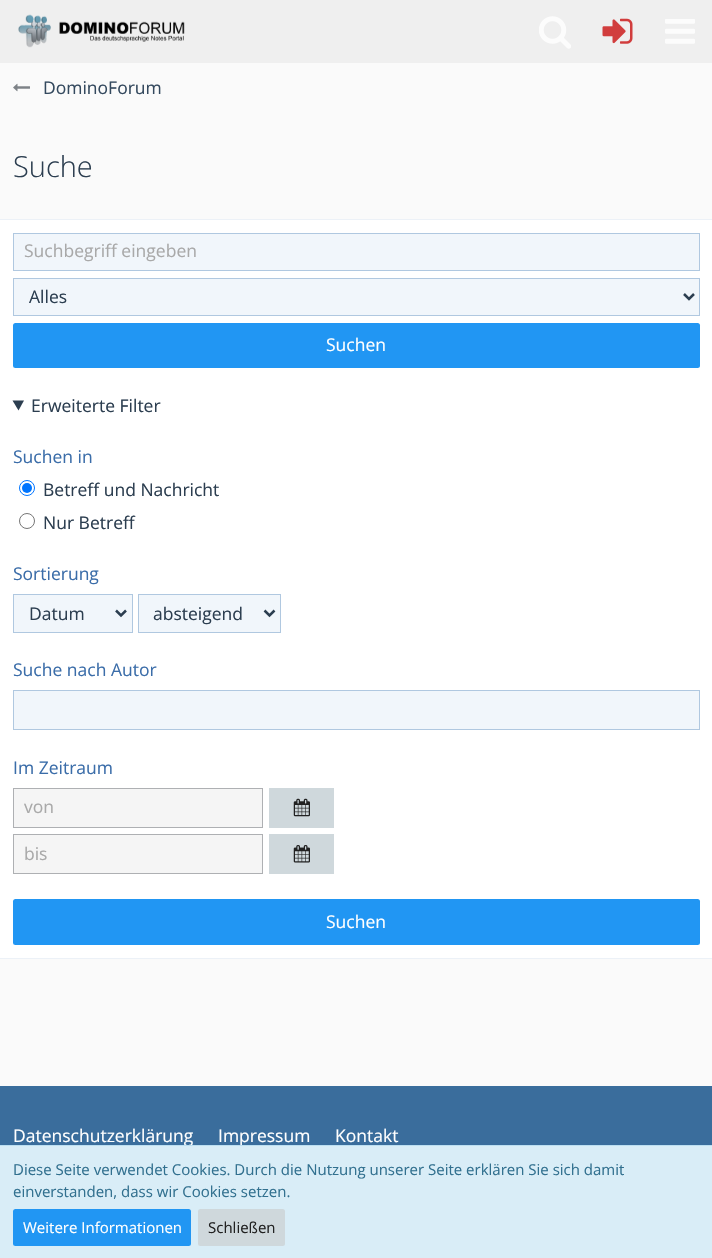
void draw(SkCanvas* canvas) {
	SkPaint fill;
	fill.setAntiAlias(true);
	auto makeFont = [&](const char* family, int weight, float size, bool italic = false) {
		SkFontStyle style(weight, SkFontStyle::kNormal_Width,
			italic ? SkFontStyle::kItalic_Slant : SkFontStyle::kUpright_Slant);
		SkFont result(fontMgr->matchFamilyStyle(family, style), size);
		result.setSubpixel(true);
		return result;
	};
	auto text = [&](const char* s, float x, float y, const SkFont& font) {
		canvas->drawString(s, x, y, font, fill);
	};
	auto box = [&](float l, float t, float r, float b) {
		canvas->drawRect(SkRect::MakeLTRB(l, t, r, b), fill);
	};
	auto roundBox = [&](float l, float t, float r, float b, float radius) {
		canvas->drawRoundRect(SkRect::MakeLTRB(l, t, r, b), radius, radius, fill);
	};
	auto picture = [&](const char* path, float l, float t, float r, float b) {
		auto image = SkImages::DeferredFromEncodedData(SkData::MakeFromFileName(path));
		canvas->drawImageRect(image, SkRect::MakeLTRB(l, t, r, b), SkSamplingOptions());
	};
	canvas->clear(0xFFFAFAFA);
	fill.setColor(0xFFEFEFEF);
	box(0, 0, 712, 63);
	picture("image0.png", 18, 14, 185, 48);
	picture("image1.png", 539, 16, 571, 49);
	picture("image2.png", 602, 18, 633, 44);
	picture("image3.png", 665, 19, 695, 44);
	picture("image4.png", 13, 83, 30, 92);
	fill.setColor(0xFFFFFFFF);
	box(0, 220, 712, 958);
	fill.setColor(0xFFECF1F7);
	box(0, 219, 712, 220);
	box(0, 958, 712, 959);
	fill.setColor(0xFFF1F6FB);
	canvas->drawRect(SkRect::MakeLTRB(13.5f, 233.5f, 699.5f, 270.5f), fill);
	fill.setStyle(SkPaint::kStroke_Style);
	fill.setStrokeWidth(1);
	fill.setColor(0xFFB0C8E0);
	canvas->drawRect(SkRect::MakeLTRB(13.5f, 233.5f, 699.5f, 270.5f), fill);
	fill.setStyle(SkPaint::kFill_Style);
	fill.setColor(0xFFF1F6FB);
	canvas->drawRect(SkRect::MakeLTRB(13.5f, 278.5f, 699.5f, 315.5f), fill);
	fill.setStyle(SkPaint::kStroke_Style);
	fill.setColor(0xFFB0C8E0);
	canvas->drawRect(SkRect::MakeLTRB(13.5f, 278.5f, 699.5f, 315.5f), fill);
	fill.setStrokeWidth(2.5f);
	fill.setColor(0xFF2C3E50);
	canvas->drawPath(SkPathBuilder().moveTo(684, 294).lineTo(689, 299).lineTo(694, 294).detach(), fill);
	fill.setStyle(SkPaint::kFill_Style);
	fill.setColor(0xFF2196F3);
	roundBox(13, 323, 700, 368, 2.5f);
	fill.setColor(0xFF2C3E50);
	canvas->drawPath(SkPathBuilder().moveTo(12.5f, 400.5f).lineTo(24, 400.5f).lineTo(18.5f, 410.5f).close().detach(), fill);
	fill.setStyle(SkPaint::kStroke_Style);
	fill.setStrokeWidth(1);
	fill.setColor(0xFF0075FF);
	canvas->drawCircle(27, 488, 7.5f, fill);
	fill.setStyle(SkPaint::kFill_Style);
	canvas->drawCircle(27, 488, 5, fill);
	fill.setStyle(SkPaint::kStroke_Style);
	fill.setColor(0xFF767676);
	canvas->drawCircle(27, 521, 7.5f, fill);
	fill.setStyle(SkPaint::kFill_Style);
	fill.setColor(0xFFF1F6FB);
	canvas->drawRect(SkRect::MakeLTRB(13.5f, 594.5f, 132.5f, 632.5f), fill);
	fill.setStyle(SkPaint::kStroke_Style);
	fill.setColor(0xFFB0C8E0);
	canvas->drawRect(SkRect::MakeLTRB(13.5f, 594.5f, 132.5f, 632.5f), fill);
	fill.setStrokeWidth(2.5f);
	fill.setColor(0xFF2C3E50);
	canvas->drawPath(SkPathBuilder().moveTo(116, 610.5f).lineTo(121, 615.5f).lineTo(126, 610.5f).detach(), fill);
	fill.setStyle(SkPaint::kFill_Style);
	fill.setColor(0xFFF1F6FB);
	canvas->drawRect(SkRect::MakeLTRB(138.5f, 594.5f, 280.5f, 632.5f), fill);
	fill.setStyle(SkPaint::kStroke_Style);
	fill.setStrokeWidth(1);
	fill.setColor(0xFFB0C8E0);
	canvas->drawRect(SkRect::MakeLTRB(138.5f, 594.5f, 280.5f, 632.5f), fill);
	fill.setStrokeWidth(2.5f);
	fill.setColor(0xFF2C3E50);
	canvas->drawPath(SkPathBuilder().moveTo(264.5f, 610.5f).lineTo(269.5f, 615.5f).lineTo(274.5f, 610.5f).detach(), fill);
	fill.setStyle(SkPaint::kFill_Style);
	fill.setColor(0xFFF1F6FB);
	canvas->drawRect(SkRect::MakeLTRB(13.5f, 690.5f, 699.5f, 729.5f), fill);
	fill.setStyle(SkPaint::kStroke_Style);
	fill.setStrokeWidth(1);
	fill.setColor(0xFFB0C8E0);
	canvas->drawRect(SkRect::MakeLTRB(13.5f, 690.5f, 699.5f, 729.5f), fill);
	fill.setStyle(SkPaint::kFill_Style);
	fill.setColor(0xFFF5F5F5);
	canvas->drawRect(SkRect::MakeLTRB(13.5f, 788.5f, 262.5f, 827.5f), fill);
	fill.setStyle(SkPaint::kStroke_Style);
	fill.setColor(0xFFAEB0B3);
	canvas->drawRect(SkRect::MakeLTRB(13.5f, 788.5f, 262.5f, 827.5f), fill);
	fill.setStyle(SkPaint::kFill_Style);
	fill.setColor(0xFFCFD8DC);
	box(269, 788, 334, 828);
	picture("image5.png", 293, 798, 310, 817);
	fill.setColor(0xFFF5F5F5);
	canvas->drawRect(SkRect::MakeLTRB(13.5f, 834.5f, 262.5f, 873.5f), fill);
	fill.setStyle(SkPaint::kStroke_Style);
	fill.setColor(0xFFAEB0B3);
	canvas->drawRect(SkRect::MakeLTRB(13.5f, 834.5f, 262.5f, 873.5f), fill);
	fill.setStyle(SkPaint::kFill_Style);
	fill.setColor(0xFFCFD8DC);
	box(269, 834, 334, 874);
	picture("image6.png", 293, 845, 310, 863);
	fill.setColor(0xFF2196F3);
	roundBox(13, 899, 700, 945, 2.5f);
	fill.setColor(0xFF3A6D9C);
	box(0, 1086, 712, 1145);
	auto font1 = makeFont("Open Sans", 400, 17.5f);
	fill.setColor(0xFF34495E);
	text("DominoForum", 43, 94, font1);
	auto font2 = makeFont("Open Sans", 300, 29);
	fill.setColor(0xFF2C3E50);
	text("Suche", 13, 177, font2);
	fill.setColor(0xFFA9A9A9);
	text("Suchbegriff eingeben", 24, 257, font1);
	fill.setColor(0xFF2C3E50);
	text("Alles", 29, 303, font1);
	fill.setColor(0xFFFFFFFF);
	text("Suchen", 326, 351, font1);
	fill.setColor(0xFF2C3E50);
	text("Erweiterte Filter", 31, 412, font1);
	fill.setColor(0xFF3B6DA9);
	text("Suchen in", 13, 463, font1);
	fill.setColor(0xFF2C3E50);
	text("Betreff und Nachricht", 43, 496, font1);
	text("Nur Betreff", 43, 529, font1);
	fill.setColor(0xFF3B6DA9);
	text("Sortierung", 13, 580, font1);
	fill.setColor(0xFF2C3E50);
	text("Datum", 29, 620, font1);
	text("absteigend", 153, 620, font1);
	fill.setColor(0xFF3B6DA9);
	text("Suche nach Autor", 13, 676, font1);
	text("Im Zeitraum", 13, 774, font1);
	fill.setColor(0xFFA9A9A9);
	text("von", 24, 813, font1);
	text("bis", 24, 860, font1);
	fill.setColor(0xFFFFFFFF);
	text("Suchen", 326, 928, font1);
	text("Datenschutzerklärung", 13, 1142, font1);
	text("Impressum", 218, 1142, font1);
	text("Kontakt", 335, 1142, font1);
	fill.setColor(0xFFD9EDF7);
	box(0, 1146, 712, 1258);
	fill.setColor(0xFFBCDFF1);
	box(0, 1145, 712, 1146);
	auto font3 = makeFont("Open Sans", 400, 15);
	fill.setColor(0xFF31708F);
	text("Diese Seite verwendet Cookies. Durch die Nutzung unserer Seite erklären Sie sich damit", 13, 1175, font3);
	text("einverstanden, dass wir Cookies setzen.", 13, 1197, font3);
	fill.setColor(0xFF2196F3);
	roundBox(13, 1209, 191, 1246, 2.5f);
	fill.setColor(0xFFFFFFFF);
	text("Weitere Informationen", 23, 1233, font3);
	fill.setColor(0xFFCFD8DC);
	roundBox(198, 1209, 285, 1246, 2.5f);
	fill.setColor(0xFF212121);
	text("Schließen", 208, 1233, font3);
}
